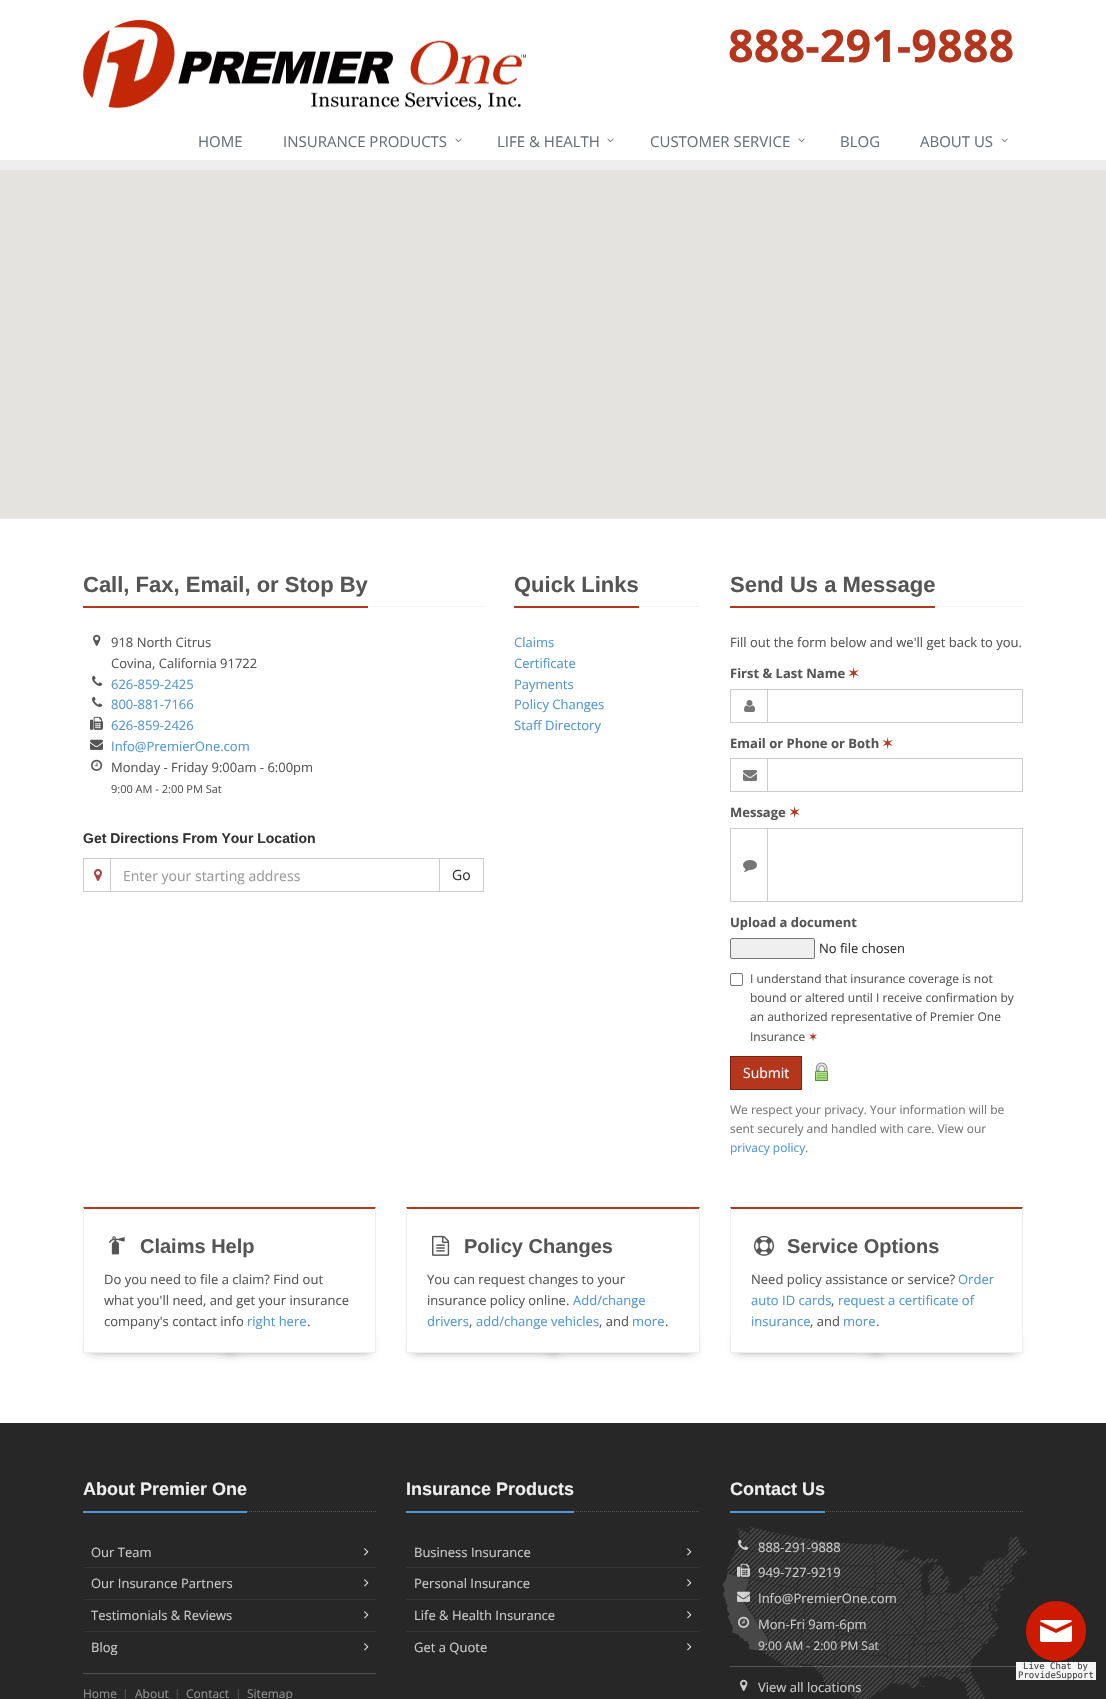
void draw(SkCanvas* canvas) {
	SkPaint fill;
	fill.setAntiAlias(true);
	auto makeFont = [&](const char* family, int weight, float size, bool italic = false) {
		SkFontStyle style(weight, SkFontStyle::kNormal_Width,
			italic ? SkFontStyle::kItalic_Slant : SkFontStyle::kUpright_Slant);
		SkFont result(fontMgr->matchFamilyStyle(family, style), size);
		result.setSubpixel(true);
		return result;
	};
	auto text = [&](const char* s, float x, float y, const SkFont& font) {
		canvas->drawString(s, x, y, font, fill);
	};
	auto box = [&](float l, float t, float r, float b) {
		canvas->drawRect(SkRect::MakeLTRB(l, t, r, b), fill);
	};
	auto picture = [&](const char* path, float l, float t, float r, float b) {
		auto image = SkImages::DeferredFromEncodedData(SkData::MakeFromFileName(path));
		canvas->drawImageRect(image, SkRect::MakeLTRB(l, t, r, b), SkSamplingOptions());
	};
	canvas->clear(0xFFFFFFFF);
	picture("image0.png", 83, 20, 526, 111);
	picture("image1.png", 455, 138, 462, 143);
	picture("image1.png", 607, 138, 614, 143);
	picture("image1.png", 798, 138, 805, 143);
	picture("image1.png", 1001, 138, 1008, 143);
	fill.setColor(0xFFEEEEEE);
	box(0, 160, 1106, 170);
	fill.setColor(0xFFE5E3DF);
	box(0, 170, 1106, 518);
	fill.setColor(0xFFEEEEEE);
	box(0, 518, 1106, 519);
	fill.setStyle(SkPaint::kStroke_Style);
	fill.setStrokeWidth(1);
	fill.setColor(0xFFE4E9F0);
	fill.setPathEffect(SkDashPathEffect::Make({{1, 1}}, 0));
	canvas->drawPath(SkPathBuilder().moveTo(83, 606.5f).lineTo(484, 606.5f).detach(), fill);
	fill.setPathEffect(nullptr);
	fill.setStyle(SkPaint::kFill_Style);
	fill.setColor(0xFFB4361D);
	box(83, 606, 368, 608);
	picture("image2.png", 93, 634, 101, 646);
	picture("image3.png", 92, 675, 103, 686);
	picture("image3.png", 92, 696, 103, 707);
	picture("image4.png", 90, 716, 103, 730);
	picture("image5.png", 90, 739, 103, 750);
	picture("image6.png", 91, 759, 103, 771);
	fill.setColor(0xFFCCCCCC);
	box(83, 858, 110, 859);
	box(83, 891, 110, 892);
	box(83, 858, 84, 892);
	picture("image7.png", 94, 869, 102, 881);
	fill.setStyle(SkPaint::kStroke_Style);
	canvas->drawRect(SkRect::MakeLTRB(110.5f, 858.5f, 439.5f, 891.5f), fill);
	canvas->drawRect(SkRect::MakeLTRB(439.5f, 858.5f, 483.5f, 891.5f), fill);
	fill.setColor(0xFFE4E9F0);
	fill.setPathEffect(SkDashPathEffect::Make({{1, 1}}, 0));
	canvas->drawPath(SkPathBuilder().moveTo(514, 606.5f).lineTo(700, 606.5f).detach(), fill);
	fill.setPathEffect(nullptr);
	fill.setStyle(SkPaint::kFill_Style);
	fill.setColor(0xFFB4361D);
	box(514, 606, 639, 608);
	fill.setStyle(SkPaint::kStroke_Style);
	fill.setColor(0xFFE4E9F0);
	fill.setPathEffect(SkDashPathEffect::Make({{1, 1}}, 0));
	canvas->drawPath(SkPathBuilder().moveTo(730, 606.5f).lineTo(1023, 606.5f).detach(), fill);
	fill.setPathEffect(nullptr);
	fill.setStyle(SkPaint::kFill_Style);
	fill.setColor(0xFFB4361D);
	box(730, 606, 935, 608);
	fill.setColor(0xFFCCCCCC);
	box(730, 689, 767, 690);
	box(730, 722, 767, 723);
	box(730, 689, 731, 723);
	picture("image8.png", 744, 700, 755, 712);
	fill.setStyle(SkPaint::kStroke_Style);
	canvas->drawRect(SkRect::MakeLTRB(767.5f, 689.5f, 1022.5f, 722.5f), fill);
	fill.setStyle(SkPaint::kFill_Style);
	box(730, 758, 767, 759);
	box(730, 791, 767, 792);
	box(730, 758, 731, 792);
	picture("image9.png", 743, 770, 757, 781);
	fill.setStyle(SkPaint::kStroke_Style);
	canvas->drawRect(SkRect::MakeLTRB(767.5f, 758.5f, 1022.5f, 791.5f), fill);
	fill.setStyle(SkPaint::kFill_Style);
	box(730, 828, 767, 829);
	box(730, 901, 767, 902);
	box(730, 828, 731, 902);
	picture("image10.png", 743, 860, 757, 872);
	fill.setStyle(SkPaint::kStroke_Style);
	canvas->drawRect(SkRect::MakeLTRB(767.5f, 828.5f, 1022.5f, 901.5f), fill);
	fill.setStyle(SkPaint::kFill_Style);
	fill.setColor(0xFFEFEFEF);
	canvas->drawRoundRect(SkRect::MakeLTRB(730.5f, 938.5f, 814.5f, 958.5f), 1.5f, 1.5f, fill);
	fill.setStyle(SkPaint::kStroke_Style);
	fill.setColor(0xFF767676);
	canvas->drawRoundRect(SkRect::MakeLTRB(730.5f, 938.5f, 814.5f, 958.5f), 1.5f, 1.5f, fill);
	canvas->drawRoundRect(SkRect::MakeLTRB(730.5f, 973.5f, 742.5f, 985.5f), 1.5f, 1.5f, fill);
	fill.setStyle(SkPaint::kFill_Style);
	fill.setColor(0xFFB4361D);
	canvas->drawRect(SkRect::MakeLTRB(730.5f, 1056.5f, 801.5f, 1089.5f), fill);
	fill.setStyle(SkPaint::kStroke_Style);
	fill.setColor(0xFF772413);
	canvas->drawRect(SkRect::MakeLTRB(730.5f, 1056.5f, 801.5f, 1089.5f), fill);
	picture("image11.png", 815, 1062, 828, 1081);
	fill.setStyle(SkPaint::kFill_Style);
	fill.setColor(0xFF999999);
	fill.setMaskFilter(SkMaskFilter::MakeBlur(kNormal_SkBlurStyle, 5));
	canvas->drawRect(SkRect::MakeLTRB(89, 1338, 235, 1352), fill);
	fill.setMaskFilter(nullptr);
	fill.setMaskFilter(SkMaskFilter::MakeBlur(kNormal_SkBlurStyle, 5));
	canvas->drawRect(SkRect::MakeLTRB(225, 1338, 370, 1352), fill);
	fill.setMaskFilter(nullptr);
	fill.setColor(0xFFFFFFFF);
	box(84, 1327, 375, 1352);
	fill.setColor(0xFFB4361D);
	canvas->drawPath(SkPathBuilder().moveTo(83, 1207).lineTo(376, 1207).lineTo(375, 1209).lineTo(84, 1209).close().detach(), fill);
	fill.setColor(0xFFEEEEEE);
	canvas->drawPath(SkPathBuilder().moveTo(376, 1207).lineTo(376, 1353).lineTo(375, 1352).lineTo(375, 1209).close().detach(), fill);
	box(83, 1352, 376, 1353);
	canvas->drawPath(SkPathBuilder().moveTo(83, 1353).lineTo(83, 1207).lineTo(84, 1209).lineTo(84, 1352).close().detach(), fill);
	picture("image12.png", 109, 1236, 125, 1255);
	fill.setColor(0xFF999999);
	fill.setMaskFilter(SkMaskFilter::MakeBlur(kNormal_SkBlurStyle, 5));
	canvas->drawRect(SkRect::MakeLTRB(412, 1338, 558, 1352), fill);
	fill.setMaskFilter(nullptr);
	fill.setMaskFilter(SkMaskFilter::MakeBlur(kNormal_SkBlurStyle, 5));
	canvas->drawRect(SkRect::MakeLTRB(548, 1338, 694, 1352), fill);
	fill.setMaskFilter(nullptr);
	fill.setColor(0xFFFFFFFF);
	box(407, 1327, 699, 1352);
	fill.setColor(0xFFB4361D);
	canvas->drawPath(SkPathBuilder().moveTo(406, 1207).lineTo(700, 1207).lineTo(699, 1209).lineTo(407, 1209).close().detach(), fill);
	fill.setColor(0xFFEEEEEE);
	canvas->drawPath(SkPathBuilder().moveTo(700, 1207).lineTo(700, 1353).lineTo(699, 1352).lineTo(699, 1209).close().detach(), fill);
	box(406, 1352, 700, 1353);
	canvas->drawPath(SkPathBuilder().moveTo(406, 1353).lineTo(406, 1207).lineTo(407, 1209).lineTo(407, 1352).close().detach(), fill);
	picture("image13.png", 432, 1235, 450, 1256);
	fill.setColor(0xFF999999);
	fill.setMaskFilter(SkMaskFilter::MakeBlur(kNormal_SkBlurStyle, 5));
	canvas->drawRect(SkRect::MakeLTRB(736, 1338, 881, 1352), fill);
	fill.setMaskFilter(nullptr);
	fill.setMaskFilter(SkMaskFilter::MakeBlur(kNormal_SkBlurStyle, 5));
	canvas->drawRect(SkRect::MakeLTRB(871, 1338, 1017, 1352), fill);
	fill.setMaskFilter(nullptr);
	fill.setColor(0xFFFFFFFF);
	box(731, 1327, 1022, 1352);
	fill.setColor(0xFFB4361D);
	canvas->drawPath(SkPathBuilder().moveTo(730, 1207).lineTo(1023, 1207).lineTo(1022, 1209).lineTo(731, 1209).close().detach(), fill);
	fill.setColor(0xFFEEEEEE);
	canvas->drawPath(SkPathBuilder().moveTo(1023, 1207).lineTo(1023, 1353).lineTo(1022, 1352).lineTo(1022, 1209).close().detach(), fill);
	box(730, 1352, 1023, 1353);
	canvas->drawPath(SkPathBuilder().moveTo(730, 1353).lineTo(730, 1207).lineTo(731, 1209).lineTo(731, 1352).close().detach(), fill);
	picture("image14.png", 754, 1235, 774, 1256);
	fill.setColor(0xFF272727);
	box(0, 1423, 1106, 1699);
	fill.setStyle(SkPaint::kStroke_Style);
	fill.setColor(0xFF545454);
	fill.setPathEffect(SkDashPathEffect::Make({{1, 1}}, 0));
	canvas->drawPath(SkPathBuilder().moveTo(83, 1511.5f).lineTo(376, 1511.5f).detach(), fill);
	fill.setPathEffect(nullptr);
	fill.setStyle(SkPaint::kFill_Style);
	fill.setColor(0xFF4F96D6);
	box(83, 1511, 247, 1513);
	picture("image15.png", 364, 1548, 369, 1556);
	fill.setColor(0xFF353535);
	box(83, 1567, 376, 1568);
	picture("image15.png", 364, 1579, 369, 1587);
	box(83, 1599, 376, 1600);
	picture("image15.png", 364, 1611, 369, 1619);
	box(83, 1631, 376, 1632);
	picture("image15.png", 364, 1643, 369, 1651);
	fill.setColor(0xFF545454);
	box(83, 1673, 376, 1674);
	fill.setStyle(SkPaint::kStroke_Style);
	fill.setPathEffect(SkDashPathEffect::Make({{1, 1}}, 0));
	canvas->drawPath(SkPathBuilder().moveTo(406, 1511.5f).lineTo(700, 1511.5f).detach(), fill);
	fill.setPathEffect(nullptr);
	fill.setStyle(SkPaint::kFill_Style);
	fill.setColor(0xFF4F96D6);
	box(406, 1511, 574, 1513);
	picture("image15.png", 687, 1548, 692, 1556);
	fill.setColor(0xFF353535);
	box(406, 1567, 700, 1568);
	picture("image15.png", 687, 1579, 692, 1587);
	box(406, 1599, 700, 1600);
	picture("image15.png", 687, 1611, 692, 1619);
	box(406, 1631, 700, 1632);
	picture("image15.png", 687, 1643, 692, 1651);
	picture("image16.png", 722, 1526, 1027, 1699);
	fill.setStyle(SkPaint::kStroke_Style);
	fill.setColor(0xFF545454);
	fill.setPathEffect(SkDashPathEffect::Make({{1, 1}}, 0));
	canvas->drawPath(SkPathBuilder().moveTo(730, 1511.5f).lineTo(1023, 1511.5f).detach(), fill);
	fill.setPathEffect(nullptr);
	fill.setStyle(SkPaint::kFill_Style);
	fill.setColor(0xFF4F96D6);
	box(730, 1511, 825, 1513);
	picture("image17.png", 738, 1539, 749, 1550);
	picture("image18.png", 737, 1563, 750, 1577);
	picture("image19.png", 737, 1591, 750, 1602);
	picture("image20.png", 738, 1616, 750, 1628);
	fill.setColor(0x36FFFFFF);
	box(730, 1666, 1023, 1667);
	picture("image21.png", 740, 1679, 748, 1691);
	picture("image22.png", 1026, 1601, 1086, 1661);
	fill.setColor(0xFFF5F5F5);
	box(1016, 1662, 1096, 1680);
	auto font1 = makeFont("Open Sans", 700, 45);
	fill.setColor(0xFFB4361D);
	text("888-291-9888", 728, 62, font1);
	auto font2 = makeFont("Open Sans", 400, 15);
	fill.setColor(0xFF687074);
	text("HOME", 198, 147, font2);
	text("INSURANCE PRODUCTS", 283, 147, font2);
	text("LIFE & HEALTH", 497, 147, font2);
	text("CUSTOMER SERVICE", 650, 147, font2);
	text("BLOG", 840, 147, font2);
	text("ABOUT US", 920, 147, font2);
	auto font3 = makeFont("Liberation Sans", 700, 22);
	fill.setColor(0xFF555555);
	text("Call, Fax, Email, or Stop By", 83, 592, font3);
	auto font4 = makeFont("Open Sans", 400, 13);
	text("918 North Citrus", 111, 647, font4);
	text("Covina, California 91722", 111, 668, font4);
	fill.setColor(0xFF4F96D6);
	text("626-859-2425", 111, 689, font4);
	text("800-881-7166", 111, 709, font4);
	text("626-859-2426", 111, 730, font4);
	text("Info@PremierOne.com", 111, 751, font4);
	fill.setColor(0xFF555555);
	text("Monday - Friday 9:00am - 6:00pm", 111, 772, font4);
	auto font5 = makeFont("Open Sans", 400, 11);
	text("9:00 AM - 2:00 PM Sat", 111, 793, font5);
	auto font6 = makeFont("Liberation Sans", 700, 14);
	fill.setColor(0xFF333333);
	text("Get Directions From Your Location", 83, 843, font6);
	auto font7 = makeFont("Open Sans", 400, 14);
	fill.setColor(0xFF999999);
	text("Enter your starting address", 123, 881, font7);
	fill.setColor(0xFF333333);
	text("Go", 452, 880, font7);
	fill.setColor(0xFF555555);
	text("Quick Links", 514, 592, font3);
	fill.setColor(0xFF4F96D6);
	text("Claims", 514, 647, font4);
	text("Certificate", 514, 668, font4);
	text("Payments", 514, 689, font4);
	text("Policy Changes", 514, 709, font4);
	text("Staff Directory", 514, 730, font4);
	fill.setColor(0xFF555555);
	text("Send Us a Message", 730, 592, font3);
	text("Fill out the form below and we'll get back to you.", 730, 647, font4);
	auto font8 = makeFont("Open Sans", 700, 13);
	text("First & Last Name", 730, 678, font8);
	auto font9 = makeFont("DejaVu Sans", 700, 13);
	fill.setColor(0xFFB4361D);
	text("✶", 848, 678, font9);
	fill.setColor(0xFF555555);
	text("Email or Phone or Both", 730, 748, font8);
	fill.setColor(0xFFB4361D);
	text("✶", 882, 748, font9);
	fill.setColor(0xFF555555);
	text("Message", 730, 817, font8);
	fill.setColor(0xFFB4361D);
	text("✶", 789, 817, font9);
	fill.setColor(0xFF555555);
	text("Upload a document", 730, 927, font8);
	fill.setColor(0xFF333333);
	text("No file chosen", 819, 953, font4);
	auto font10 = makeFont("Open Sans", 400, 12);
	fill.setColor(0xFF555555);
	text("I understand that insurance coverage is not", 750, 983, font10);
	text("bound or altered until I receive confirmation by", 750, 1002, font10);
	text("an authorized representative of Premier One", 750, 1021, font10);
	text("Insurance", 750, 1041, font10);
	auto font11 = makeFont("DejaVu Sans", 400, 12);
	fill.setColor(0xFFB4361D);
	text("✶", 808, 1041, font11);
	fill.setColor(0xFFFFFFFF);
	text("Submit", 743, 1078, font7);
	fill.setColor(0xFF767676);
	text("We respect your privacy. Your information will be", 730, 1114, font10);
	text("sent securely and handled with care. View our", 730, 1133, font10);
	fill.setColor(0xFF4F96D6);
	text("privacy policy", 730, 1152, font10);
	fill.setColor(0xFF767676);
	text(".", 805, 1152, font10);
	auto font12 = makeFont("Liberation Sans", 700, 20);
	fill.setColor(0xFF555555);
	text("Claims Help", 140, 1253, font12);
	text("Do you need to file a claim? Find out", 104, 1284, font4);
	text("what you'll need, and get your insurance", 104, 1305, font4);
	text("company's contact info", 104, 1326, font4);
	fill.setColor(0xFF4F96D6);
	text("right here", 247, 1326, font4);
	fill.setColor(0xFF555555);
	text(".", 307, 1326, font4);
	text("Policy Changes", 464, 1253, font12);
	text("You can request changes to your", 427, 1284, font4);
	text("insurance policy online.", 427, 1305, font4);
	fill.setColor(0xFF4F96D6);
	text("Add/change", 573, 1305, font4);
	text("drivers", 427, 1326, font4);
	fill.setColor(0xFF555555);
	text(",", 469, 1326, font4);
	fill.setColor(0xFF4F96D6);
	text("add/change vehicles", 476, 1326, font4);
	fill.setColor(0xFF555555);
	text(", and", 599, 1326, font4);
	fill.setColor(0xFF4F96D6);
	text("more", 632, 1326, font4);
	fill.setColor(0xFF555555);
	text(".", 665, 1326, font4);
	text("Service Options", 787, 1253, font12);
	text("Need policy assistance or service?", 751, 1284, font4);
	fill.setColor(0xFF4F96D6);
	text("Order", 958, 1284, font4);
	text("auto ID cards", 751, 1305, font4);
	fill.setColor(0xFF555555);
	text(",", 831, 1305, font4);
	fill.setColor(0xFF4F96D6);
	text("request a certificate of", 838, 1305, font4);
	text("insurance", 751, 1326, font4);
	fill.setColor(0xFF555555);
	text(", and", 810, 1326, font4);
	fill.setColor(0xFF4F96D6);
	text("more", 843, 1326, font4);
	fill.setColor(0xFF555555);
	text(".", 876, 1326, font4);
	auto font13 = makeFont("Liberation Sans", 700, 18);
	fill.setColor(0xFFEEEEEE);
	text("About Premier One", 83, 1495, font13);
	fill.setColor(0xFFCCCCCC);
	text("Our Team", 91, 1557, font4);
	text("Our Insurance Partners", 91, 1588, font4);
	text("Testimonials & Reviews", 91, 1620, font4);
	text("Blog", 91, 1652, font4);
	fill.setColor(0xFF939393);
	text("Home", 83, 1698, font10);
	fill.setColor(0xFF555555);
	text("|", 122, 1698, font10);
	fill.setColor(0xFF939393);
	text("About", 135, 1698, font10);
	fill.setColor(0xFF555555);
	text("|", 174, 1698, font10);
	fill.setColor(0xFF939393);
	text("Contact", 186, 1698, font10);
	fill.setColor(0xFF555555);
	text("|", 235, 1698, font10);
	fill.setColor(0xFF939393);
	text("Sitemap", 247, 1698, font10);
	fill.setColor(0xFFEEEEEE);
	text("Insurance Products", 406, 1495, font13);
	fill.setColor(0xFFCCCCCC);
	text("Business Insurance", 414, 1557, font4);
	text("Personal Insurance", 414, 1588, font4);
	text("Life & Health Insurance", 414, 1620, font4);
	text("Get a Quote", 414, 1652, font4);
	fill.setColor(0xFFEEEEEE);
	text("Contact Us", 730, 1495, font13);
	fill.setColor(0xFFCCCCCC);
	text("888-291-9888", 758, 1552, font4);
	text("949-727-9219", 758, 1577, font4);
	text("Info@PremierOne.com", 758, 1603, font4);
	text("Mon-Fri 9am-6pm", 758, 1629, font4);
	text("9:00 AM - 2:00 PM Sat", 758, 1650, font10);
	text("View all locations", 758, 1692, font4);
	auto font14 = makeFont("DejaVu Sans Mono", 400, 9);
	fill.setColor(0xFF444444);
	text("Live Chat by", 1023, 1669, font14);
	text("ProvideSupport", 1018, 1678, font14);
}
